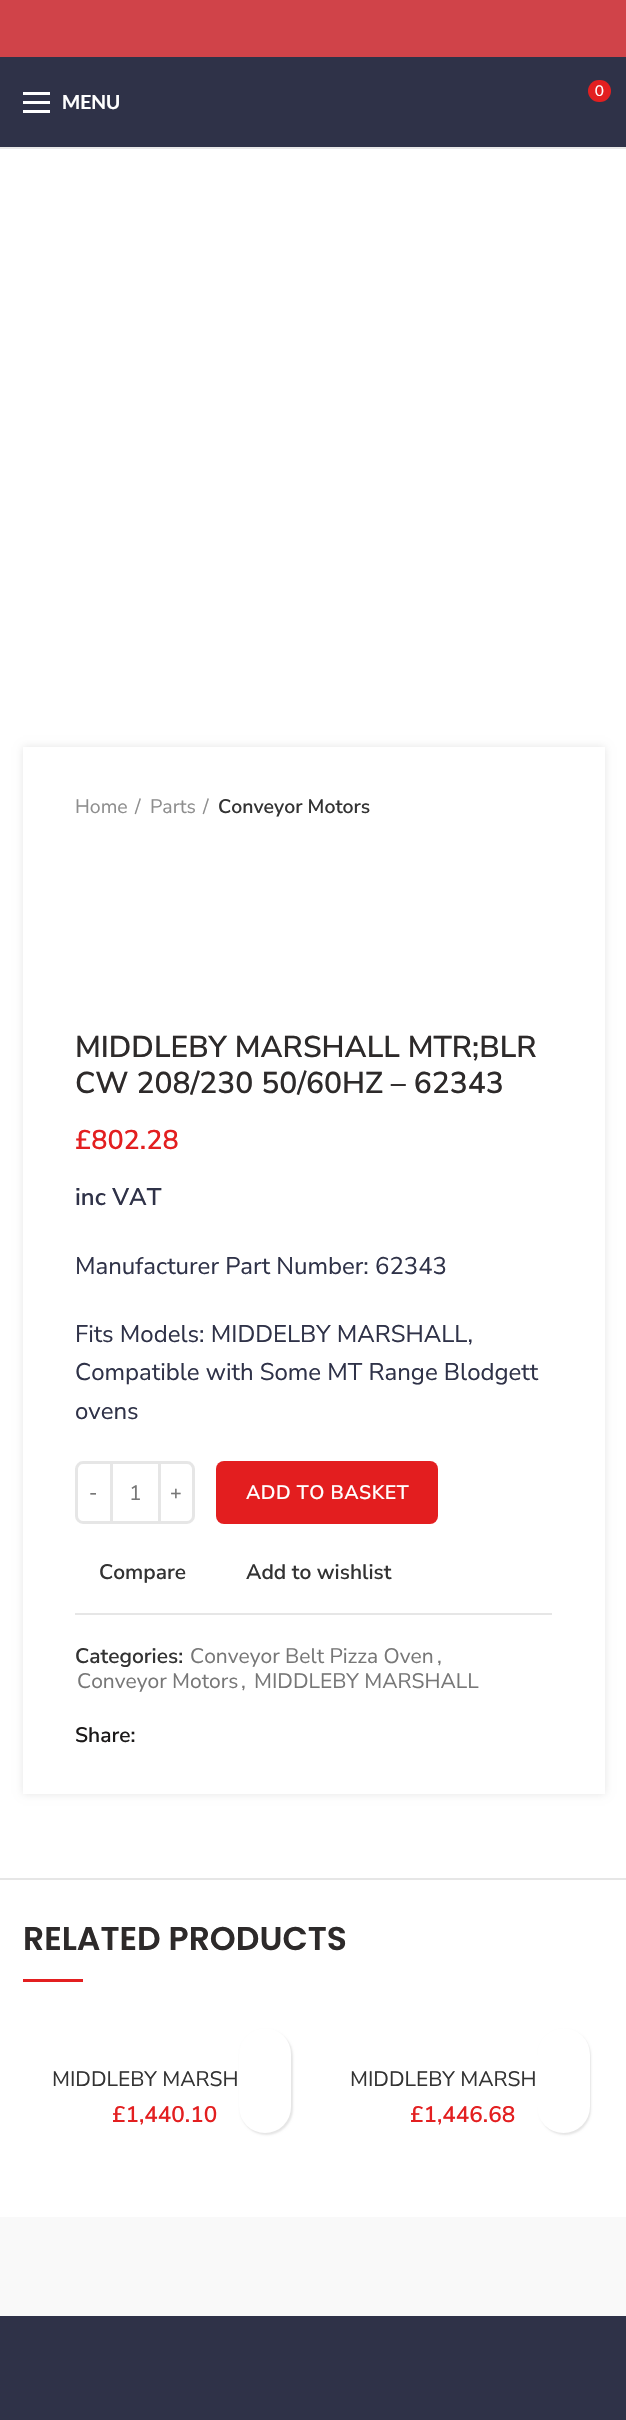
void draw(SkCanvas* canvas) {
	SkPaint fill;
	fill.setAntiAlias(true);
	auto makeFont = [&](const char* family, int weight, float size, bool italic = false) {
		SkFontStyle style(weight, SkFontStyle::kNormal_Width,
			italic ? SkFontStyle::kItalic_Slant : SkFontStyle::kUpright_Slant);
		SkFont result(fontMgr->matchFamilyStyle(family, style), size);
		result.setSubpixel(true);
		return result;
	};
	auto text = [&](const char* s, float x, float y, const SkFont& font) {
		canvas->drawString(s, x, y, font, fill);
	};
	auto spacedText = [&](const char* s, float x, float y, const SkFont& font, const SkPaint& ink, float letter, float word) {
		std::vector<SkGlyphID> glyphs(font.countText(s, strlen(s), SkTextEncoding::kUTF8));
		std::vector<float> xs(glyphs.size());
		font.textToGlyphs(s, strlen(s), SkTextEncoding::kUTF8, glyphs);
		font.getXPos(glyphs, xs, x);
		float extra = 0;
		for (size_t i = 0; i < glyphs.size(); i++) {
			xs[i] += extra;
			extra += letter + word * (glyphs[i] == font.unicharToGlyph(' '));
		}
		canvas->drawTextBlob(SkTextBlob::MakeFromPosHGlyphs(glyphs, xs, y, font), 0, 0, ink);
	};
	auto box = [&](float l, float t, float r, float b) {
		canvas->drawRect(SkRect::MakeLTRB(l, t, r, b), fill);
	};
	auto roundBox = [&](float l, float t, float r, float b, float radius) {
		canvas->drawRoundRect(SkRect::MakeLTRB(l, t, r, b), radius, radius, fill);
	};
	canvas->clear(0xFFFFFFFF);
	fill.setColor(0xFFD04349);
	box(0, 0, 626, 57);
	fill.setColor(0xFF2F3248);
	box(0, 57, 626, 147);
	fill.setColor(0xFFE8E8E8);
	box(0, 147, 626, 149);
	fill.setColor(0xFFE31F20);
	roundBox(588, 80, 611, 102, 11);
	fill.setColor(0xFFFFFFFF);
	box(23, 101, 50, 104);
	box(23, 92, 50, 95);
	box(23, 110, 50, 113);
	fill.setColor(0x1A000000);
	fill.setMaskFilter(SkMaskFilter::MakeBlur(kNormal_SkBlurStyle, 4));
	canvas->drawRect(SkRect::MakeLTRB(23, 747, 605, 1794), fill);
	fill.setMaskFilter(nullptr);
	fill.setColor(0xFFFFFFFF);
	box(23, 747, 605, 1794);
	fill.setStyle(SkPaint::kStroke_Style);
	fill.setStrokeWidth(3);
	fill.setColor(0xFFE6E6E6);
	canvas->drawPath(SkPathBuilder().moveTo(83, 1462.5f).lineTo(111.5f, 1462.5f).lineTo(111.5f, 1522.5f).lineTo(83, 1522.5f).cubicTo(79.5f, 1522.5f, 76.5f, 1519.5f, 76.5f, 1516).lineTo(76.5f, 1469).cubicTo(76.5f, 1465.5f, 79.5f, 1462.5f, 83, 1462.5f).close().detach(), fill);
	fill.setStyle(SkPaint::kFill_Style);
	box(113, 1461, 158, 1464);
	box(113, 1521, 158, 1524);
	fill.setStyle(SkPaint::kStroke_Style);
	canvas->drawPath(SkPathBuilder().moveTo(159.5f, 1462.5f).lineTo(187, 1462.5f).cubicTo(190.5f, 1462.5f, 193.5f, 1465.5f, 193.5f, 1469).lineTo(193.5f, 1516).cubicTo(193.5f, 1519.5f, 190.5f, 1522.5f, 187, 1522.5f).lineTo(159.5f, 1522.5f).close().detach(), fill);
	fill.setStyle(SkPaint::kFill_Style);
	fill.setColor(0xFFE31E1F);
	roundBox(216, 1461, 438, 1524, 8);
	fill.setColor(0xFFE6E6E6);
	box(75, 1613, 552, 1615);
	box(0, 1878, 626, 1880);
	fill.setColor(0xFFE31F20);
	box(23, 1979, 83, 1982);
	fill.setColor(0x1A000000);
	fill.setMaskFilter(SkMaskFilter::MakeBlur(kNormal_SkBlurStyle, 1));
	canvas->drawRoundRect(SkRect::MakeLTRB(240, 2030, 293, 2135), 26.5f, 26.5f, fill);
	fill.setMaskFilter(nullptr);
	fill.setColor(0xFFFFFFFF);
	roundBox(239, 2028, 291, 2133, 26);
	fill.setColor(0x1A000000);
	fill.setMaskFilter(SkMaskFilter::MakeBlur(kNormal_SkBlurStyle, 1));
	canvas->drawRoundRect(SkRect::MakeLTRB(539, 2030, 591, 2135), 26, 26, fill);
	fill.setMaskFilter(nullptr);
	fill.setColor(0xFFFFFFFF);
	roundBox(537, 2028, 590, 2133, 26.5f);
	fill.setColor(0xFFF9F9F9);
	box(0, 2217, 626, 2316);
	fill.setColor(0xFF2F3248);
	box(0, 2316, 626, 2420);
	auto font1 = makeFont("Lato", 400, 15);
	fill.setColor(0xFFFFFFFF);
	text("0", 595, 96, font1);
	auto font2 = makeFont("Lato", 700, 19.5f);
	text("MENU", 62, 109, font2);
	auto font3 = makeFont("Nunito Sans", 400, 19.5f);
	fill.setColor(0xFF8E8E8E);
	text("Home", 75, 813, font3);
	text("/", 135, 813, font3);
	text("Parts", 150, 813, font3);
	text("/", 203, 813, font3);
	auto font4 = makeFont("Nunito Sans", 600, 19.5f);
	fill.setColor(0xFF333333);
	text("Conveyor Motors", 218, 813, font4);
	auto font5 = makeFont("Nunito Sans", 600, 30);
	fill.setColor(0xFF2D2A2A);
	text("MIDDLEBY MARSHALL MTR;BLR", 75, 1057, font5);
	text("CW 208/230 50/60HZ – 62343", 75, 1093, font5);
	auto font6 = makeFont("Nunito Sans", 600, 27);
	fill.setColor(0xFFE31F20);
	text("£802.28", 75, 1149, font6);
	auto font7 = makeFont("Nunito Sans", 600, 24);
	fill.setColor(0xFF2F3248);
	text("inc VAT", 75, 1205, font7);
	auto font8 = makeFont("Nunito Sans", 400, 24);
	text("Manufacturer Part Number: 62343", 75, 1274, font8);
	text("Fits Models: MIDDELBY MARSHALL,", 75, 1342, font8);
	text("Compatible with Some MT Range Blodgett", 75, 1380, font8);
	text("ovens", 75, 1419, font8);
	fill.setColor(0xFF777777);
	spacedText("-", 89, 1499, font4, fill, 0.5f, 0);
	auto font9 = makeFont("Nunito Sans", 400, 21);
	text("1", 129, 1500, font9);
	spacedText("+", 170, 1499, font4, fill, 0.5f, 0);
	fill.setColor(0xFFFFFFFF);
	spacedText("ADD TO BASKET", 246, 1499, font4, fill, 0.5f, 0);
	auto font10 = makeFont("Nunito Sans", 600, 21);
	fill.setColor(0xFF333333);
	text("Compare", 99, 1579, font10);
	text("Add to wishlist", 246, 1579, font10);
	text("Categories:", 75, 1663, font10);
	fill.setColor(0xFF777777);
	text("Conveyor Belt Pizza Oven", 190, 1663, font9);
	text(",", 437, 1663, font9);
	text("Conveyor Motors", 77, 1688, font9);
	text(",", 241, 1688, font9);
	text("MIDDLEBY MARSHALL", 254, 1688, font9);
	fill.setColor(0xFF1B1919);
	text("Share:", 75, 1742, font10);
	auto font11 = makeFont("Poppins", 600, 33);
	fill.setColor(0xFF2D2A2A);
	text("RELATED PRODUCTS", 23, 1950, font11);
	fill.setColor(0xFF333333);
	text("MIDDLEBY MARSH", 52, 2086, font9);
	auto font12 = makeFont("Nunito Sans", 600, 22.5f);
	fill.setColor(0xFFE31F20);
	text("£1,440.10", 112, 2122, font12);
	fill.setColor(0xFF333333);
	text("MIDDLEBY MARSH", 350, 2086, font9);
	fill.setColor(0xFFE31F20);
	text("£1,446.68", 410, 2122, font12);
}
